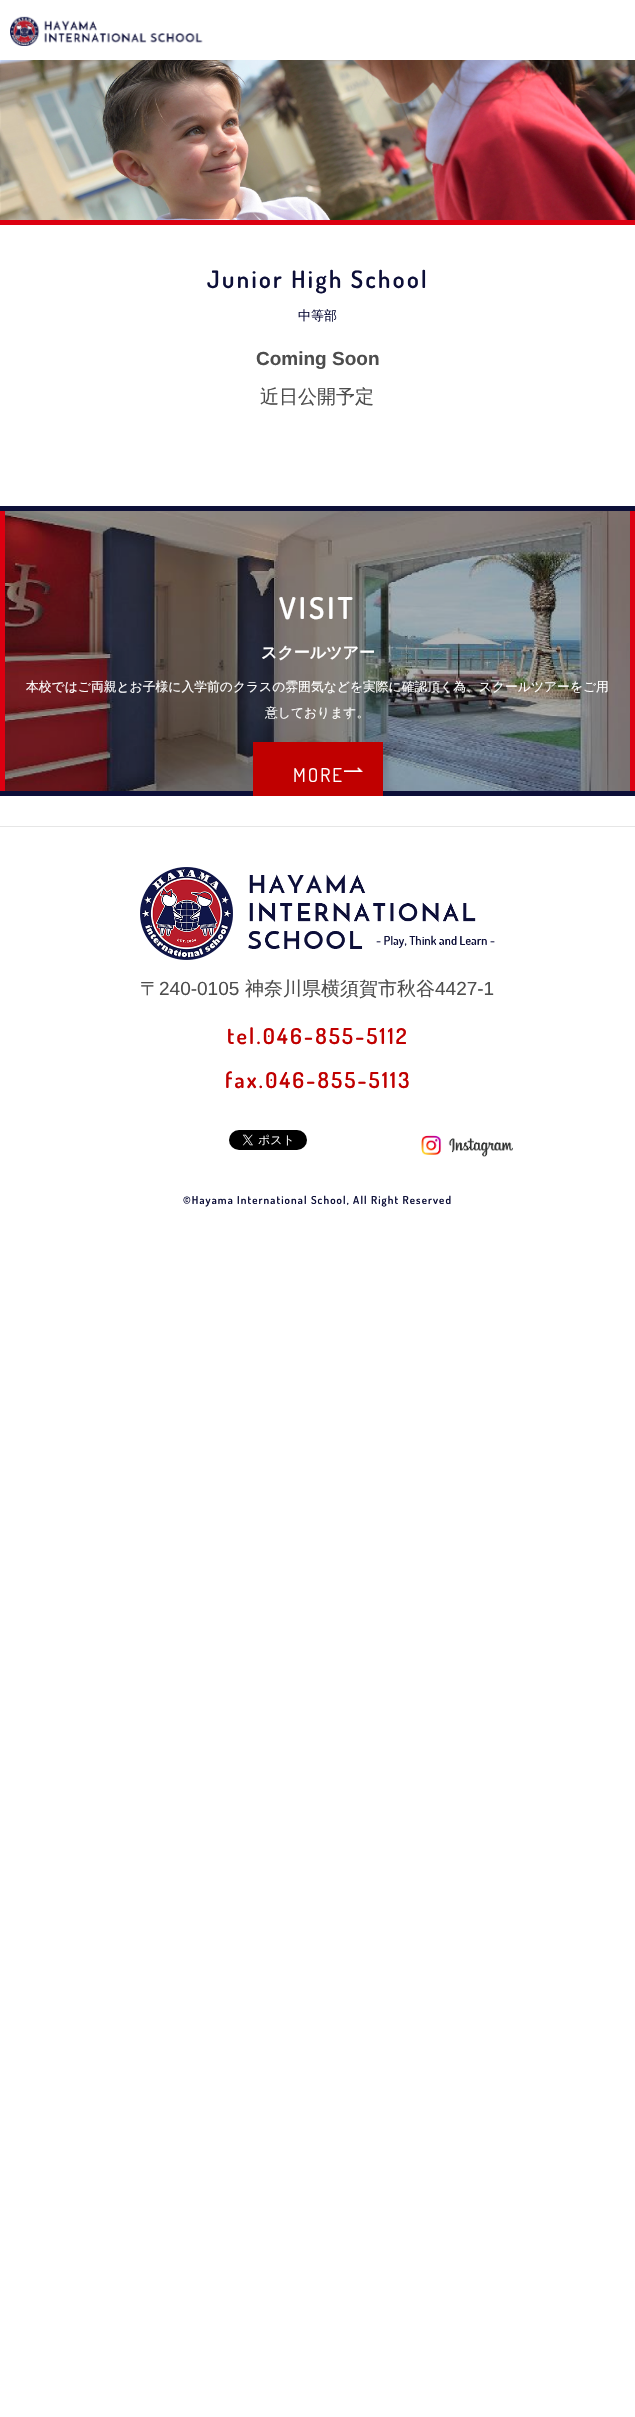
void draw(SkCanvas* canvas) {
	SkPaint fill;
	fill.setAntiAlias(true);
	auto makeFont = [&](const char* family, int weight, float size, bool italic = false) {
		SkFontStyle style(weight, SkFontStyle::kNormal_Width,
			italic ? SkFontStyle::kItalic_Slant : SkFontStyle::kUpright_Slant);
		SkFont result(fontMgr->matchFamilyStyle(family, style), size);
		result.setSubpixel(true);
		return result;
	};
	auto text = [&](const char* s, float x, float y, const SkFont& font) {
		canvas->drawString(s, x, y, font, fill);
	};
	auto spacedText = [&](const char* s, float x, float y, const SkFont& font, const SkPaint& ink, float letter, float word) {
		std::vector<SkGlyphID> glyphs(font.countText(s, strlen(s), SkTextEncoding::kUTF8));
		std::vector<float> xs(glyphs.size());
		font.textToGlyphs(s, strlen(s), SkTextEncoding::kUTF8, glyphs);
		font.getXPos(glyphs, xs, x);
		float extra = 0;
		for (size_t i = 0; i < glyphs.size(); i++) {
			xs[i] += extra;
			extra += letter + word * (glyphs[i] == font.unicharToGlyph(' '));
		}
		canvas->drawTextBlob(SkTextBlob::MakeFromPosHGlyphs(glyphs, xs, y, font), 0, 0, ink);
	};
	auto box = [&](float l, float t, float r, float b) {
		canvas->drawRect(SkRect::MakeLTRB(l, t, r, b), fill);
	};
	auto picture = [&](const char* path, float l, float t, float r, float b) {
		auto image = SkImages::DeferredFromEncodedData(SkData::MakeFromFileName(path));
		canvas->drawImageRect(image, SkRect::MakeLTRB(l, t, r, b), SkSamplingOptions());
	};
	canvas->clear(0xFFFFFFFF);
	picture("image0.png", 10, 16, 203, 46);
	picture("image1.png", 0, 60, 635, 220);
	fill.setColor(0xFFDC0011);
	box(0, 220, 635, 225);
	picture("image2.png", 5, 511, 630, 791);
	fill.setColor(0xFF0D0F38);
	box(0, 506, 635, 511);
	box(0, 791, 635, 796);
	fill.setColor(0xFFDC0011);
	box(630, 511, 635, 791);
	box(0, 511, 5, 791);
	fill.setColor(0xFFC00000);
	box(253, 742, 383, 796);
	picture("image3.png", 344, 767, 363, 772);
	fill.setColor(0xFFE6E6E6);
	box(0, 826, 635, 827);
	picture("image4.png", 140, 867, 495, 960);
	picture("image5.png", 229, 1130, 307, 1150);
	picture("image6.png", 421, 1135, 513, 1157);
	auto font1 = makeFont("Dosis", 600, 24);
	fill.setColor(0xFF0D0F38);
	spacedText("Junior High School", 207, 288, font1, fill, 2.4f, 0);
	auto font2 = makeFont("WenQuanYi Zen Hei", 500, 13);
	text("中等部", 298, 320, font2);
	auto font3 = makeFont("Liberation Sans", 700, 19);
	fill.setColor(0xFF4D4D4D);
	text("Coming Soon", 256, 365, font3);
	auto font4 = makeFont("WenQuanYi Zen Hei", 500, 19);
	text("近日公開予定", 260, 403, font4);
	auto font5 = makeFont("Dosis", 600, 30);
	fill.setColor(0xFFFFFFFF);
	spacedText("VISIT", 279, 619, font5, fill, 3, 0);
	auto font6 = makeFont("WenQuanYi Zen Hei", 700, 16);
	text("スクールツアー", 261, 658, font6);
	auto font7 = makeFont("WenQuanYi Zen Hei", 500, 12.8f);
	text("本校ではご両親とお子様に入学前のクラスの雰囲気などを実際に確認頂く為、スクールツアーをご用", 26, 691, font7);
	text("意しております。", 265, 717, font7);
	auto font8 = makeFont("Dosis", 400, 19);
	spacedText("MORE", 293, 782, font8, fill, 2, 0);
	fill.setColor(0xFF4D4D4D);
	text("〒", 140, 995, font4);
	auto font9 = makeFont("Liberation Sans", 400, 19);
	text("240-0105", 159, 995, font9);
	text("神奈川県横須賀市秋谷", 245, 995, font4);
	text("4427-1", 435, 995, font9);
	auto font10 = makeFont("Dosis", 600, 22);
	fill.setColor(0xFFC00000);
	spacedText("tel.046-855-5112", 227, 1044, font10, fill, 2.25f, 0);
	spacedText("fax.046-855-5113", 225, 1088, font10, fill, 2.25f, 0);
	auto font11 = makeFont("Dosis", 600, 11);
	fill.setColor(0xFF0D0F38);
	spacedText("©Hayama International School, All Right Reserved", 183, 1204, font11, fill, 1.1f, 0);
}
